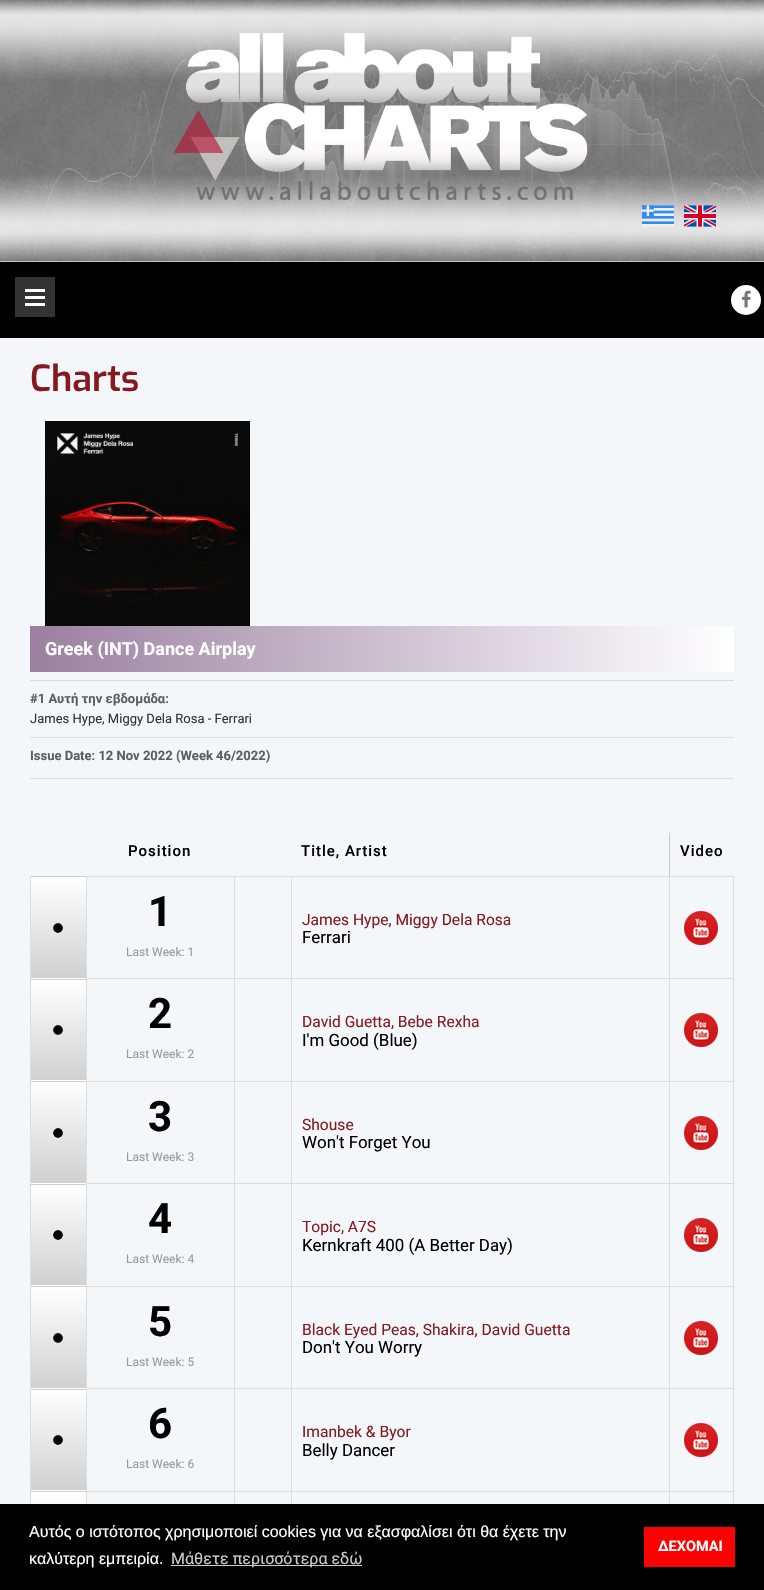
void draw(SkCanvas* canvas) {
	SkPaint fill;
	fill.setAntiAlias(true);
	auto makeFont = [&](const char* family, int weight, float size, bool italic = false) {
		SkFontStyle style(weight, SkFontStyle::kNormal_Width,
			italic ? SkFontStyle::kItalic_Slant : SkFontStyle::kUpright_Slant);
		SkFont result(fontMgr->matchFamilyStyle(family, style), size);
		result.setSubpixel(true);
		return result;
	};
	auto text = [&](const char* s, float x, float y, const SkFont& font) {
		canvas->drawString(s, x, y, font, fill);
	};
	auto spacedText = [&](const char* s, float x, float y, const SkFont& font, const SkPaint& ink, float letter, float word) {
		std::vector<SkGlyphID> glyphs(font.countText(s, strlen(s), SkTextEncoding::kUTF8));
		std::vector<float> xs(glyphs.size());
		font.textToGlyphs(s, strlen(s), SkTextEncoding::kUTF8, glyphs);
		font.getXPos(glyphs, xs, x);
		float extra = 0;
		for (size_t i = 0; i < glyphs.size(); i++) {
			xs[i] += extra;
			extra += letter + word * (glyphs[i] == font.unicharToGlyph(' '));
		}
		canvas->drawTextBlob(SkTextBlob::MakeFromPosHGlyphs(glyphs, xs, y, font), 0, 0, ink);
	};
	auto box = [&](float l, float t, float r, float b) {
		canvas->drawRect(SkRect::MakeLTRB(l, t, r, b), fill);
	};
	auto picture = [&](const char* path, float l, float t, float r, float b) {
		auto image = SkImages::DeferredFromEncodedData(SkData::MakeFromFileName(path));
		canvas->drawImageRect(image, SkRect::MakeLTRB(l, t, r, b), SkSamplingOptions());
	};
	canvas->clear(0xFFF4F7FA);
	picture("image0.png", 0, 0, 764, 262);
	picture("image1.png", 173, 33, 588, 200);
	picture("image2.png", 642, 205, 674, 227);
	picture("image3.png", 684, 205, 716, 227);
	fill.setColor(0xFF000000);
	box(0, 262, 764, 338);
	fill.setColor(0xFF333333);
	box(15, 277, 55, 317);
	fill.setColor(0xFFFFFFFF);
	box(25, 303, 45, 306);
	box(25, 296, 45, 299);
	box(25, 289, 45, 292);
	canvas->drawCircle(746, 300, 15, fill);
	picture("image4.png", 741, 290, 751, 308);
	picture("image5.png", 45, 421, 250, 626);
	fill.setColor(0xFFDDDDDD);
	box(30, 680, 734, 681);
	{
		const SkColor colors[] = {0xFF9B80A0, 0xFFFFFFFF};
		const float stops[] = {0, 1};
		const SkPoint ends[] = {{30, 649}, {734, 649}};
		fill.setShader(SkGradientShader::MakeLinear(ends, colors, stops, 2, SkTileMode::kClamp));
		fill.setAlpha(255);
	}
	box(30, 626, 734, 672);
	fill.setShader(nullptr);
	fill.setColor(0xFFDDDDDD);
	box(30, 737, 734, 738);
	box(30, 778, 734, 779);
	box(669, 876, 734, 877);
	box(669, 978, 734, 979);
	box(669, 1081, 734, 1082);
	box(669, 1183, 734, 1184);
	box(669, 1286, 734, 1287);
	box(669, 1388, 734, 1389);
	box(669, 1491, 734, 1492);
	box(669, 1491, 670, 1504);
	box(291, 1491, 670, 1492);
	box(669, 1388, 670, 1492);
	box(291, 1388, 670, 1389);
	box(669, 1286, 670, 1389);
	box(291, 1286, 670, 1287);
	box(669, 1183, 670, 1287);
	box(291, 1183, 670, 1184);
	box(669, 1081, 670, 1184);
	box(291, 1081, 670, 1082);
	box(669, 978, 670, 1082);
	box(291, 978, 670, 979);
	box(669, 876, 670, 979);
	box(291, 876, 670, 877);
	fill.setColor(0xFFCCCCCC);
	box(669, 833, 670, 877);
	fill.setColor(0xFFDDDDDD);
	box(30, 876, 31, 1504);
	{
		const SkColor colors[] = {0xFFD0D0D0, 0xFFFFFFFF};
		const float stops[] = {0, 1};
		const SkPoint ends[] = {{59, 1492}, {59, 1391}};
		fill.setShader(SkGradientShader::MakeLinear(ends, colors, stops, 2, SkTileMode::kClamp));
		fill.setAlpha(255);
	}
	box(31, 1491, 86, 1492);
	{
		const SkColor colors[] = {0xFFD0D0D0, 0xFFFFFFFF};
		const float stops[] = {0, 1};
		const SkPoint ends[] = {{59, 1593}, {59, 1492}};
		fill.setShader(SkGradientShader::MakeLinear(ends, colors, stops, 2, SkTileMode::kClamp));
		fill.setAlpha(255);
	}
	box(31, 1492, 86, 1504);
	fill.setShader(nullptr);
	fill.setColor(0xFFDDDDDD);
	box(291, 1491, 292, 1504);
	box(234, 1491, 292, 1492);
	box(234, 1491, 235, 1504);
	box(86, 1491, 235, 1492);
	box(86, 1491, 87, 1504);
	box(733, 1491, 734, 1504);
	{
		const SkColor colors[] = {0xFFD0D0D0, 0xFFFFFFFF};
		const float stops[] = {0, 1};
		const SkPoint ends[] = {{59, 877}, {59, 776}};
		fill.setShader(SkGradientShader::MakeLinear(ends, colors, stops, 2, SkTileMode::kClamp));
		fill.setAlpha(255);
	}
	box(31, 876, 86, 877);
	{
		const SkColor colors[] = {0xFFD0D0D0, 0xFFFFFFFF};
		const float stops[] = {0, 1};
		const SkPoint ends[] = {{59, 978}, {59, 877}};
		fill.setShader(SkGradientShader::MakeLinear(ends, colors, stops, 2, SkTileMode::kClamp));
		fill.setAlpha(255);
	}
	box(31, 877, 86, 978);
	{
		const SkColor colors[] = {0xFFD0D0D0, 0xFFFFFFFF};
		const float stops[] = {0, 1};
		const SkPoint ends[] = {{59, 1079}, {59, 978}};
		fill.setShader(SkGradientShader::MakeLinear(ends, colors, stops, 2, SkTileMode::kClamp));
		fill.setAlpha(255);
	}
	box(31, 978, 86, 979);
	picture("image6.png", 53, 923, 63, 933);
	fill.setShader(nullptr);
	fill.setColor(0xFFDDDDDD);
	box(291, 1388, 292, 1492);
	box(234, 1388, 292, 1389);
	box(291, 1286, 292, 1389);
	box(234, 1286, 292, 1287);
	box(291, 1183, 292, 1287);
	box(234, 1183, 292, 1184);
	box(291, 1081, 292, 1184);
	box(234, 1081, 292, 1082);
	box(291, 978, 292, 1082);
	box(234, 978, 292, 979);
	box(291, 876, 292, 979);
	box(234, 876, 292, 877);
	box(234, 1388, 235, 1492);
	box(86, 1388, 235, 1389);
	box(234, 1286, 235, 1389);
	box(86, 1286, 235, 1287);
	box(234, 1183, 235, 1287);
	box(86, 1183, 235, 1184);
	box(234, 1081, 235, 1184);
	box(86, 1081, 235, 1082);
	box(234, 978, 235, 1082);
	box(86, 978, 235, 979);
	box(234, 876, 235, 979);
	box(86, 876, 235, 877);
	box(86, 1388, 87, 1492);
	box(86, 1286, 87, 1389);
	box(86, 1183, 87, 1287);
	box(86, 1081, 87, 1184);
	box(86, 978, 87, 1082);
	box(86, 876, 87, 979);
	box(733, 1388, 734, 1492);
	box(733, 1286, 734, 1389);
	box(733, 1183, 734, 1287);
	box(733, 1081, 734, 1184);
	box(733, 978, 734, 1082);
	box(733, 876, 734, 979);
	picture("image7.png", 684, 911, 718, 945);
	{
		const SkColor colors[] = {0xFFD0D0D0, 0xFFFFFFFF};
		const float stops[] = {0, 1};
		const SkPoint ends[] = {{59, 980}, {59, 880}};
		fill.setShader(SkGradientShader::MakeLinear(ends, colors, stops, 2, SkTileMode::kClamp));
		fill.setAlpha(255);
	}
	box(31, 979, 86, 980);
	{
		const SkColor colors[] = {0xFFD0D0D0, 0xFFFFFFFF};
		const float stops[] = {0, 1};
		const SkPoint ends[] = {{59, 1080}, {59, 980}};
		fill.setShader(SkGradientShader::MakeLinear(ends, colors, stops, 2, SkTileMode::kClamp));
		fill.setAlpha(255);
	}
	box(31, 980, 86, 1080);
	{
		const SkColor colors[] = {0xFFD0D0D0, 0xFFFFFFFF};
		const float stops[] = {0, 1};
		const SkPoint ends[] = {{59, 1180}, {59, 1080}};
		fill.setShader(SkGradientShader::MakeLinear(ends, colors, stops, 2, SkTileMode::kClamp));
		fill.setAlpha(255);
	}
	box(31, 1080, 86, 1081);
	picture("image8.png", 53, 1025, 63, 1035);
	picture("image7.png", 684, 1013, 718, 1047);
	{
		const SkColor colors[] = {0xFFD0D0D0, 0xFFFFFFFF};
		const float stops[] = {0, 1};
		const SkPoint ends[] = {{59, 1082}, {59, 981}};
		fill.setShader(SkGradientShader::MakeLinear(ends, colors, stops, 2, SkTileMode::kClamp));
		fill.setAlpha(255);
	}
	box(31, 1081, 86, 1082);
	{
		const SkColor colors[] = {0xFFD0D0D0, 0xFFFFFFFF};
		const float stops[] = {0, 1};
		const SkPoint ends[] = {{59, 1183}, {59, 1082}};
		fill.setShader(SkGradientShader::MakeLinear(ends, colors, stops, 2, SkTileMode::kClamp));
		fill.setAlpha(255);
	}
	box(31, 1082, 86, 1183);
	{
		const SkColor colors[] = {0xFFD0D0D0, 0xFFFFFFFF};
		const float stops[] = {0, 1};
		const SkPoint ends[] = {{59, 1284}, {59, 1183}};
		fill.setShader(SkGradientShader::MakeLinear(ends, colors, stops, 2, SkTileMode::kClamp));
		fill.setAlpha(255);
	}
	box(31, 1183, 86, 1184);
	picture("image6.png", 53, 1128, 63, 1138);
	picture("image7.png", 684, 1116, 718, 1150);
	{
		const SkColor colors[] = {0xFFD0D0D0, 0xFFFFFFFF};
		const float stops[] = {0, 1};
		const SkPoint ends[] = {{59, 1185}, {59, 1085}};
		fill.setShader(SkGradientShader::MakeLinear(ends, colors, stops, 2, SkTileMode::kClamp));
		fill.setAlpha(255);
	}
	box(31, 1184, 86, 1185);
	{
		const SkColor colors[] = {0xFFD0D0D0, 0xFFFFFFFF};
		const float stops[] = {0, 1};
		const SkPoint ends[] = {{59, 1285}, {59, 1185}};
		fill.setShader(SkGradientShader::MakeLinear(ends, colors, stops, 2, SkTileMode::kClamp));
		fill.setAlpha(255);
	}
	box(31, 1185, 86, 1285);
	{
		const SkColor colors[] = {0xFFD0D0D0, 0xFFFFFFFF};
		const float stops[] = {0, 1};
		const SkPoint ends[] = {{59, 1385}, {59, 1285}};
		fill.setShader(SkGradientShader::MakeLinear(ends, colors, stops, 2, SkTileMode::kClamp));
		fill.setAlpha(255);
	}
	box(31, 1285, 86, 1286);
	picture("image8.png", 53, 1230, 63, 1240);
	picture("image7.png", 684, 1218, 718, 1252);
	{
		const SkColor colors[] = {0xFFD0D0D0, 0xFFFFFFFF};
		const float stops[] = {0, 1};
		const SkPoint ends[] = {{59, 1287}, {59, 1186}};
		fill.setShader(SkGradientShader::MakeLinear(ends, colors, stops, 2, SkTileMode::kClamp));
		fill.setAlpha(255);
	}
	box(31, 1286, 86, 1287);
	{
		const SkColor colors[] = {0xFFD0D0D0, 0xFFFFFFFF};
		const float stops[] = {0, 1};
		const SkPoint ends[] = {{59, 1388}, {59, 1287}};
		fill.setShader(SkGradientShader::MakeLinear(ends, colors, stops, 2, SkTileMode::kClamp));
		fill.setAlpha(255);
	}
	box(31, 1287, 86, 1388);
	{
		const SkColor colors[] = {0xFFD0D0D0, 0xFFFFFFFF};
		const float stops[] = {0, 1};
		const SkPoint ends[] = {{59, 1489}, {59, 1388}};
		fill.setShader(SkGradientShader::MakeLinear(ends, colors, stops, 2, SkTileMode::kClamp));
		fill.setAlpha(255);
	}
	box(31, 1388, 86, 1389);
	picture("image6.png", 53, 1333, 63, 1343);
	picture("image7.png", 684, 1321, 718, 1355);
	{
		const SkColor colors[] = {0xFFD0D0D0, 0xFFFFFFFF};
		const float stops[] = {0, 1};
		const SkPoint ends[] = {{59, 1390}, {59, 1290}};
		fill.setShader(SkGradientShader::MakeLinear(ends, colors, stops, 2, SkTileMode::kClamp));
		fill.setAlpha(255);
	}
	box(31, 1389, 86, 1390);
	{
		const SkColor colors[] = {0xFFD0D0D0, 0xFFFFFFFF};
		const float stops[] = {0, 1};
		const SkPoint ends[] = {{59, 1490}, {59, 1390}};
		fill.setShader(SkGradientShader::MakeLinear(ends, colors, stops, 2, SkTileMode::kClamp));
		fill.setAlpha(255);
	}
	box(31, 1390, 86, 1490);
	{
		const SkColor colors[] = {0xFFD0D0D0, 0xFFFFFFFF};
		const float stops[] = {0, 1};
		const SkPoint ends[] = {{59, 1590}, {59, 1490}};
		fill.setShader(SkGradientShader::MakeLinear(ends, colors, stops, 2, SkTileMode::kClamp));
		fill.setAlpha(255);
	}
	box(31, 1490, 86, 1491);
	picture("image8.png", 53, 1435, 63, 1445);
	picture("image7.png", 684, 1423, 718, 1457);
	fill.setShader(nullptr);
	fill.setColor(0xFF000000);
	box(0, 1504, 764, 1590);
	fill.setColor(0xFFCCCCCC);
	box(171, 1565, 362, 1566);
	fill.setColor(0xFFFF0000);
	box(644, 1527, 735, 1567);
	auto font1 = makeFont("Exo", 600, 36);
	fill.setColor(0xFF841A20);
	text("Charts", 30, 391, font1);
	auto font2 = makeFont("Roboto", 700, 18);
	fill.setColor(0xFFFFFFFF);
	text("Greek (INT) Dance Airplay", 45, 655, font2);
	auto font3 = makeFont("Roboto", 700, 13);
	fill.setColor(0xFF5D5D5D);
	text("#1 Αυτή την εβδομάδα:", 30, 703, font3);
	auto font4 = makeFont("Roboto", 400, 13);
	fill.setColor(0xFF333333);
	text("James Hype, Miggy Dela Rosa - Ferrari", 30, 723, font4);
	fill.setColor(0xFF5D5D5D);
	text("Issue Date: 12 Nov 2022 (Week 46/2022)", 30, 760, font3);
	auto font5 = makeFont("Roboto", 500, 15);
	fill.setColor(0xFF000000);
	spacedText("Position", 128, 856, font5, fill, 1, 0);
	spacedText("Title, Artist", 301, 856, font5, fill, 1, 0);
	spacedText("Video", 680, 856, font5, fill, 1, 0);
	auto font6 = makeFont("Roboto", 700, 42);
	text("1", 148, 926, font6);
	auto font7 = makeFont("Roboto", 400, 12);
	fill.setColor(0xFF999999);
	text("Last Week: 1", 126, 956, font7);
	auto font8 = makeFont("Roboto", 400, 15.6f);
	fill.setColor(0xFF841A20);
	text("James Hype, Miggy Dela Rosa", 302, 925, font8);
	auto font9 = makeFont("Roboto", 400, 16.9f);
	fill.setColor(0xFF000000);
	text("Ferrari", 302, 943, font9);
	text("2", 148, 1028, font6);
	fill.setColor(0xFF999999);
	text("Last Week: 2", 126, 1058, font7);
	fill.setColor(0xFF841A20);
	text("David Guetta, Bebe Rexha", 302, 1027, font8);
	fill.setColor(0xFF000000);
	text("I'm Good (Blue)", 302, 1046, font9);
	text("3", 148, 1131, font6);
	fill.setColor(0xFF999999);
	text("Last Week: 3", 126, 1161, font7);
	fill.setColor(0xFF841A20);
	text("Shouse", 302, 1130, font8);
	fill.setColor(0xFF000000);
	text("Won't Forget You", 302, 1148, font9);
	text("4", 148, 1233, font6);
	fill.setColor(0xFF999999);
	text("Last Week: 4", 126, 1263, font7);
	fill.setColor(0xFF841A20);
	text("Topic, A7S", 302, 1232, font8);
	fill.setColor(0xFF000000);
	text("Kernkraft 400 (A Better Day)", 302, 1251, font9);
	text("5", 148, 1336, font6);
	fill.setColor(0xFF999999);
	text("Last Week: 5", 126, 1366, font7);
	fill.setColor(0xFF841A20);
	text("Black Eyed Peas, Shakira, David Guetta", 302, 1335, font8);
	fill.setColor(0xFF000000);
	text("Don't You Worry", 302, 1353, font9);
	text("6", 148, 1438, font6);
	fill.setColor(0xFF999999);
	text("Last Week: 6", 126, 1468, font7);
	fill.setColor(0xFF841A20);
	text("Imanbek & Byor", 302, 1437, font8);
	fill.setColor(0xFF000000);
	text("Belly Dancer", 302, 1456, font9);
	auto font10 = makeFont("Liberation Sans", 400, 16);
	fill.setColor(0xFFFFFFFF);
	text("Αυτός ο ιστότοπος χρησιμοποιεί cookies για να εξασφαλίσει ότι θα έχετε την", 29, 1537, font10);
	text("καλύτερη εμπειρία.", 29, 1564, font10);
	auto font11 = makeFont("Roboto", 400, 16);
	fill.setColor(0xFFCCCCCC);
	text("Μάθετε περισσότερα εδώ", 171, 1564, font11);
	auto font12 = makeFont("Roboto", 700, 14.5f);
	fill.setColor(0xFFFFFFFF);
	text("ΔΕΧΟΜΑΙ", 658, 1551, font12);
}
